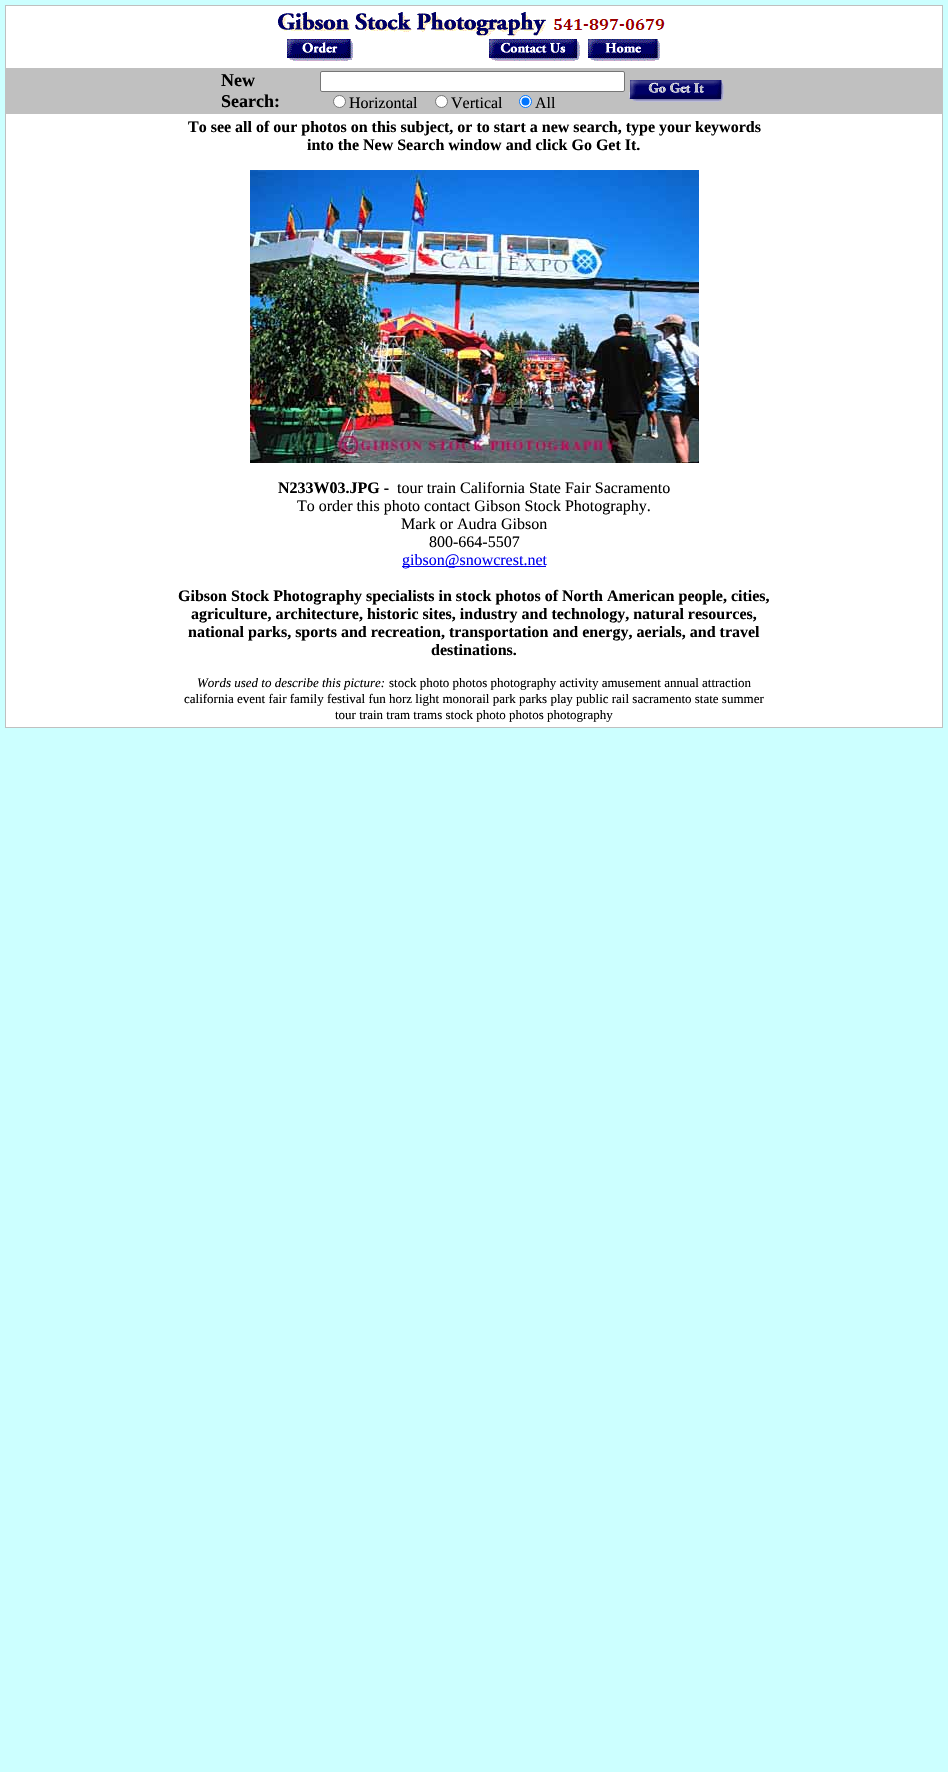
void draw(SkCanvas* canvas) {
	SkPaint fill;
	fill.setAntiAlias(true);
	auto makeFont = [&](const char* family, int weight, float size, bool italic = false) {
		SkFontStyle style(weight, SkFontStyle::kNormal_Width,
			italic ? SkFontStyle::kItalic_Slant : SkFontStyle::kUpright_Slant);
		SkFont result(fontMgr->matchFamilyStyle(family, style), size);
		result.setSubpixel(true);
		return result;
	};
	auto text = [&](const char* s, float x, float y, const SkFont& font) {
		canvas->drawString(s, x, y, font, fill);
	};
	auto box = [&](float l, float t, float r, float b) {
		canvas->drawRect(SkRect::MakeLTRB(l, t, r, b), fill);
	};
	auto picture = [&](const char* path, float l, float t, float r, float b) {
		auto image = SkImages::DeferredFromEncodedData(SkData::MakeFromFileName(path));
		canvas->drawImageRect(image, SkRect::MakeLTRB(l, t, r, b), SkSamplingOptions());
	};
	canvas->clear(0xFFCCFFFF);
	fill.setColor(0xFFC0C0C0);
	box(5, 5, 943, 728);
	fill.setColor(0xFFFFFFFF);
	box(6, 6, 942, 68);
	picture("image0.png", 278, 12, 665, 61);
	canvas->drawRoundRect(SkRect::MakeLTRB(320.5f, 71.5f, 624.5f, 91.5f), 1.5f, 1.5f, fill);
	fill.setStyle(SkPaint::kStroke_Style);
	fill.setStrokeWidth(1);
	fill.setColor(0xFF767676);
	canvas->drawRoundRect(SkRect::MakeLTRB(320.5f, 71.5f, 624.5f, 91.5f), 1.5f, 1.5f, fill);
	fill.setStyle(SkPaint::kFill_Style);
	fill.setColor(0xFFFFFFFF);
	canvas->drawCircle(339.5f, 101.5f, 6, fill);
	fill.setStyle(SkPaint::kStroke_Style);
	fill.setColor(0xFF767676);
	canvas->drawCircle(339.5f, 101.5f, 6, fill);
	fill.setStyle(SkPaint::kFill_Style);
	fill.setColor(0xFFFFFFFF);
	canvas->drawCircle(441.5f, 101.5f, 6, fill);
	fill.setStyle(SkPaint::kStroke_Style);
	fill.setColor(0xFF767676);
	canvas->drawCircle(441.5f, 101.5f, 6, fill);
	fill.setStyle(SkPaint::kFill_Style);
	fill.setColor(0xFFFFFFFF);
	canvas->drawCircle(525.5f, 101.5f, 6, fill);
	fill.setStyle(SkPaint::kStroke_Style);
	fill.setColor(0xFF0075FF);
	canvas->drawCircle(525.5f, 101.5f, 6, fill);
	fill.setStyle(SkPaint::kFill_Style);
	canvas->drawCircle(525.5f, 101.5f, 4, fill);
	picture("image1.png", 629, 80, 724, 102);
	fill.setColor(0xFFFFFFFF);
	box(6, 114, 942, 727);
	picture("image2.png", 250, 170, 699, 463);
	fill.setColor(0xFF0000EE);
	box(402, 566, 546, 567);
	auto font1 = makeFont("Liberation Serif", 700, 18);
	fill.setColor(0xFF000000);
	text("New", 221, 86, font1);
	text("Search:", 221, 107, font1);
	auto font2 = makeFont("Liberation Serif", 400, 16);
	text("Horizontal", 349, 108, font2);
	text("Vertical", 451, 108, font2);
	text("All", 535, 108, font2);
	auto font3 = makeFont("Liberation Serif", 700, 16);
	text("To see all of our photos on this subject, or to start a new search, type your keywords", 188, 132, font3);
	text("into the New Search window and click Go Get It.", 307, 150, font3);
	text("N233W03.JPG -", 278, 493, font3);
	text("tour train California State Fair Sacramento", 397, 493, font2);
	text("To order this photo contact Gibson Stock Photography.", 297, 511, font2);
	text("Mark or Audra Gibson", 401, 529, font2);
	text("800-664-5507", 429, 547, font2);
	fill.setColor(0xFF0000EE);
	text("gibson@snowcrest.net", 402, 565, font2);
	fill.setColor(0xFF000000);
	text("Gibson Stock Photography specialists in stock photos of North American people, cities,", 178, 601, font3);
	text("agriculture, architecture, historic sites, industry and technology, natural resources,", 191, 619, font3);
	text("national parks, sports and recreation, transportation and energy, aerials, and travel", 188, 637, font3);
	text("destinations.", 431, 655, font3);
	auto font4 = makeFont("Liberation Serif", 400, 13, true);
	text("Words used to describe this picture:", 197, 687, font4);
	auto font5 = makeFont("Liberation Serif", 400, 13);
	text("stock photo photos photography activity amusement annual attraction", 389, 687, font5);
	text("california event fair family festival fun horz light monorail park parks play public rail sacramento state summer", 184, 703, font5);
	text("tour train tram trams stock photo photos photography", 335, 719, font5);
}
